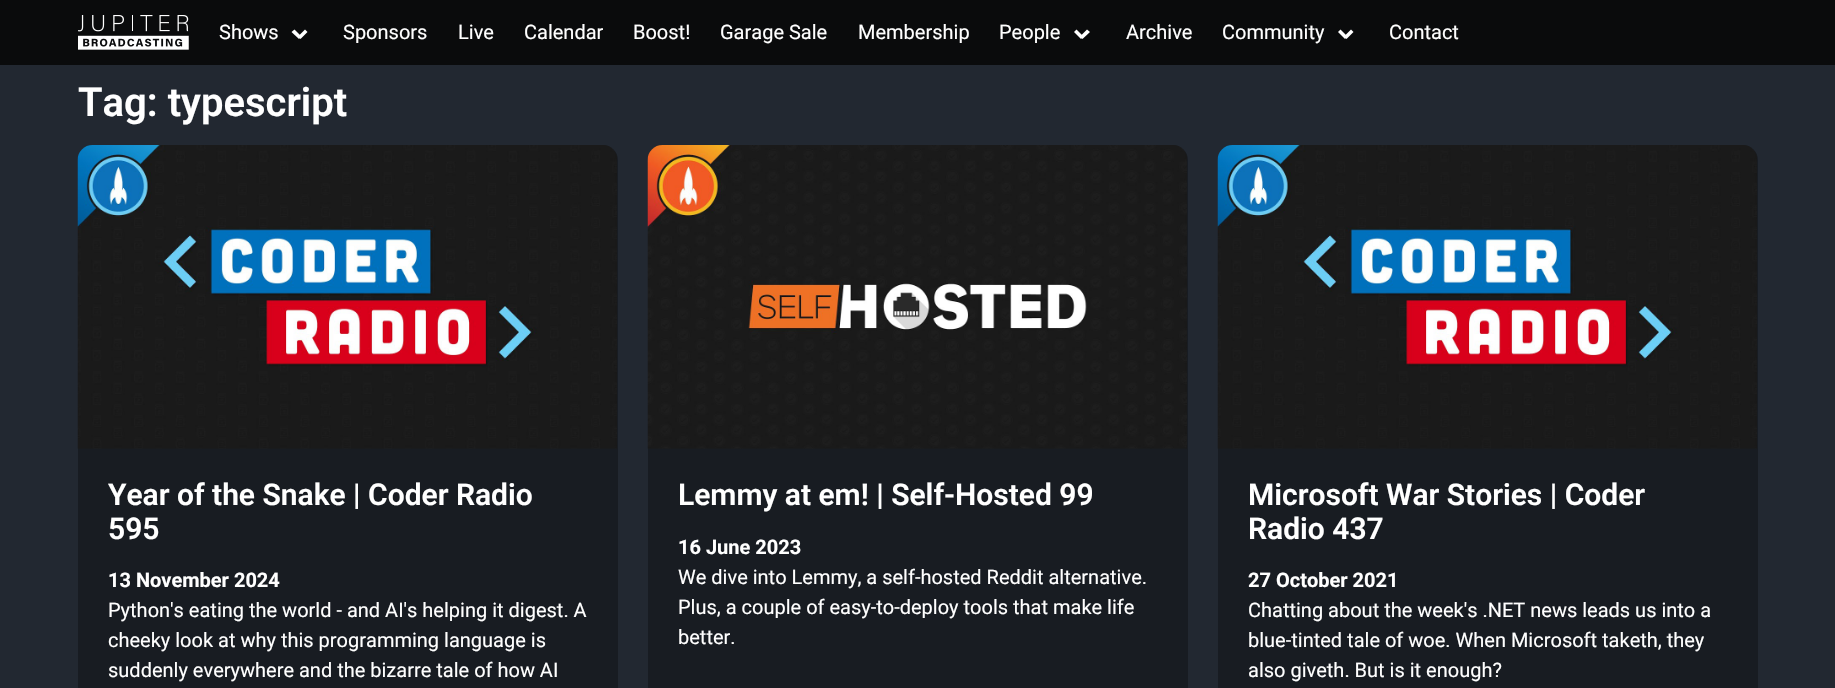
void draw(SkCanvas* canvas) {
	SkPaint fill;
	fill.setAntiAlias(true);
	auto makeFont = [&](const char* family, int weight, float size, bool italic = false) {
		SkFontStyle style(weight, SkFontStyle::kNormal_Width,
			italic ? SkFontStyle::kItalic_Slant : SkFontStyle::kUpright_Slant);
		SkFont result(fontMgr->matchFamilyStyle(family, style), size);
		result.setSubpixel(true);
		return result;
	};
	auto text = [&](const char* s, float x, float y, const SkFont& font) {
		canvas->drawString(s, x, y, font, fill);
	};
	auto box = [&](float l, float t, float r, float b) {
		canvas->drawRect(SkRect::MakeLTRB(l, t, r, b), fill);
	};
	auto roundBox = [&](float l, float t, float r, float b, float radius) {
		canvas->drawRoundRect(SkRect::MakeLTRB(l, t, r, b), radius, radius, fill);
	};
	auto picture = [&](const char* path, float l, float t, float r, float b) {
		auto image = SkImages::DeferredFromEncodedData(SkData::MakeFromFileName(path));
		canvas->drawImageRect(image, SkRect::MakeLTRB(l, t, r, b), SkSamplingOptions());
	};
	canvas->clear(0xFF222831);
	fill.setColor(0xFF0A0B0C);
	box(0, 0, 1835, 65);
	picture("image0.png", 78, 15, 189, 50);
	fill.setColor(0xFFFFFFFF);
	canvas->drawPath(SkPathBuilder().moveTo(298, 36.5f).lineTo(305, 29.5f).lineTo(307.5f, 32).lineTo(300.5f, 39).close().detach(), fill);
	canvas->drawPath(SkPathBuilder().moveTo(291.5f, 32).lineTo(294.5f, 29.5f).lineTo(301.5f, 36.5f).lineTo(299, 39).close().detach(), fill);
	canvas->drawPath(SkPathBuilder().moveTo(1080, 36.5f).lineTo(1087, 29.5f).lineTo(1090, 32).lineTo(1082.5f, 39).close().detach(), fill);
	canvas->drawPath(SkPathBuilder().moveTo(1074, 32).lineTo(1076.5f, 29.5f).lineTo(1083.5f, 36.5f).lineTo(1081, 39).close().detach(), fill);
	canvas->drawPath(SkPathBuilder().moveTo(1344, 36.5f).lineTo(1351, 29.5f).lineTo(1353.5f, 32).lineTo(1346.5f, 39).close().detach(), fill);
	canvas->drawPath(SkPathBuilder().moveTo(1338, 32).lineTo(1340.5f, 29.5f).lineTo(1347.5f, 36.5f).lineTo(1345, 39).close().detach(), fill);
	fill.setColor(0xFF181C22);
	roundBox(78, 145, 618, 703, 15);
	picture("image1.png", 77, 145, 617, 449);
	roundBox(648, 145, 1188, 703, 15);
	picture("image2.png", 647, 145, 1187, 449);
	roundBox(1218, 145, 1758, 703, 15);
	picture("image3.png", 1217, 145, 1757, 449);
	auto font1 = makeFont("Roboto", 400, 20);
	fill.setColor(0xFFFFFFFF);
	text("Shows", 219, 39, font1);
	text("Sponsors", 343, 39, font1);
	text("Live", 458, 39, font1);
	text("Calendar", 524, 39, font1);
	text("Boost!", 633, 39, font1);
	text("Garage Sale", 720, 39, font1);
	text("Membership", 858, 39, font1);
	text("People", 999, 39, font1);
	text("Archive", 1126, 39, font1);
	text("Community", 1222, 39, font1);
	text("Contact", 1389, 39, font1);
	auto font2 = makeFont("Roboto", 600, 40);
	text("Tag: typescript", 78, 116, font2);
	auto font3 = makeFont("Roboto", 600, 30);
	text("Year of the Snake | Coder Radio", 108, 505, font3);
	text("595", 108, 539, font3);
	auto font4 = makeFont("Roboto", 700, 20);
	text("13 November 2024", 108, 587, font4);
	text("Python's eating the world - and AI's helping it digest. A", 108, 617, font1);
	text("cheeky look at why this programming language is", 108, 647, font1);
	text("suddenly everywhere and the bizarre tale of how AI", 108, 677, font1);
	text("Lemmy at em! | Self-Hosted 99", 678, 505, font3);
	text("16 June 2023", 678, 554, font4);
	text("We dive into Lemmy, a self-hosted Reddit alternative.", 678, 584, font1);
	text("Plus, a couple of easy-to-deploy tools that make life", 678, 614, font1);
	text("better.", 678, 644, font1);
	text("Microsoft War Stories | Coder", 1248, 505, font3);
	text("Radio 437", 1248, 539, font3);
	text("27 October 2021", 1248, 587, font4);
	text("Chatting about the week's .NET news leads us into a", 1248, 617, font1);
	text("blue-tinted tale of woe. When Microsoft taketh, they", 1248, 647, font1);
	text("also giveth. But is it enough?", 1248, 677, font1);
}
